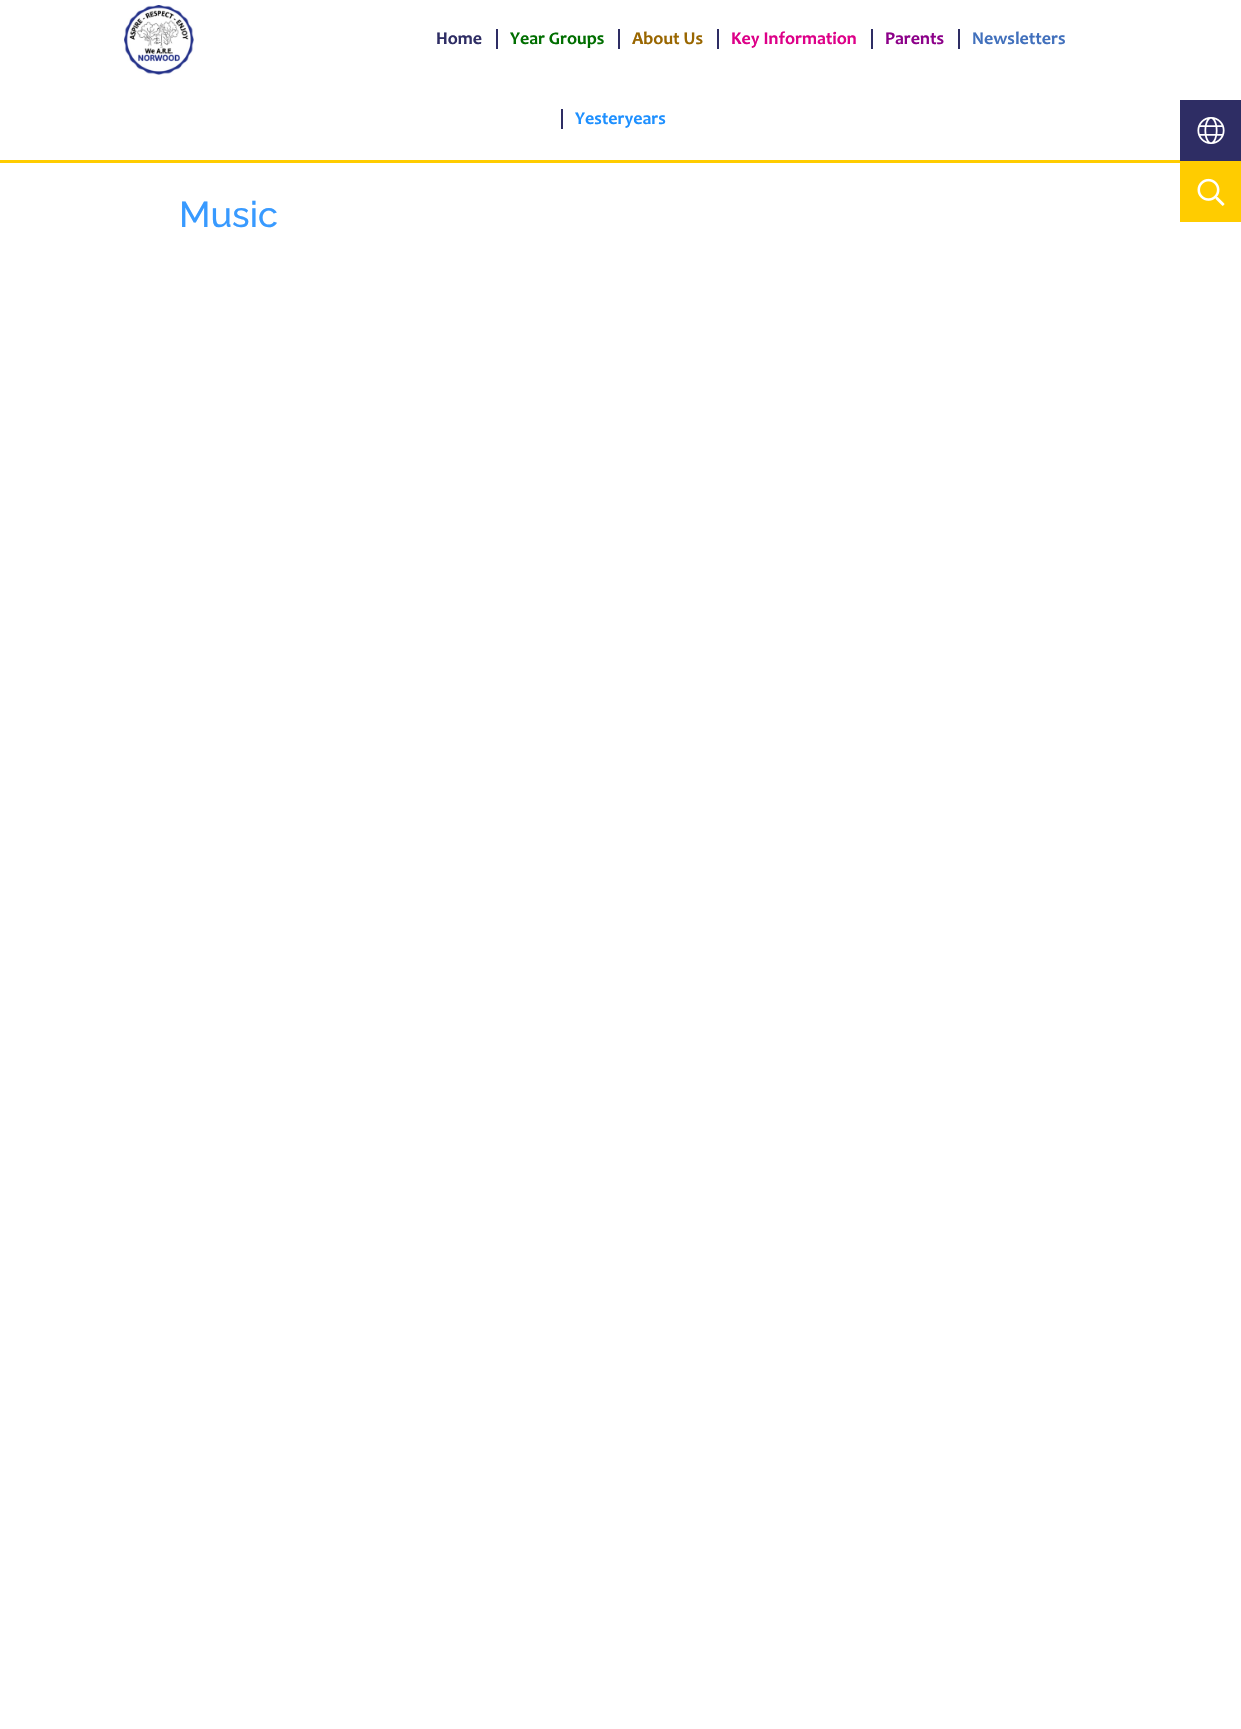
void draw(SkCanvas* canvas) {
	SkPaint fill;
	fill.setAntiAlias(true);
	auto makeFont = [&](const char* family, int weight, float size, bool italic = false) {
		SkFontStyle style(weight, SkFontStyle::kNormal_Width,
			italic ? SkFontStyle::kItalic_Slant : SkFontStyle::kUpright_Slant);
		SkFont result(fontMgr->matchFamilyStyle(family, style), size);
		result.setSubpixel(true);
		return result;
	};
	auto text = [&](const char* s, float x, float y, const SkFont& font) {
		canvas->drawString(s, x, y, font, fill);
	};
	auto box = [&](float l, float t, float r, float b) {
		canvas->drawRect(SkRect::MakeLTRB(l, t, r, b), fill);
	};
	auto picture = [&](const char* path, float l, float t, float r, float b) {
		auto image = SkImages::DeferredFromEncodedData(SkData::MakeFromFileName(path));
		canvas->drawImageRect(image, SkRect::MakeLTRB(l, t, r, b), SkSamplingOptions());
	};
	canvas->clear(0xFFFFFFFF);
	fill.setColor(0xFFFFCC00);
	box(0, 160, 1180, 163);
	picture("image0.png", 124, 5, 194, 75);
	fill.setColor(0xFF2E2D64);
	box(496, 29, 498, 49);
	box(618, 29, 620, 49);
	box(717, 29, 719, 49);
	box(871, 29, 873, 49);
	box(958, 29, 960, 49);
	box(561, 109, 563, 129);
	box(1180, 100, 1241, 161);
	picture("image1.png", 1197, 117, 1225, 144);
	fill.setColor(0xFFFFCC00);
	box(1180, 161, 1241, 222);
	picture("image2.png", 1197, 178, 1225, 206);
	auto font1 = makeFont("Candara", 700, 18);
	fill.setColor(0xFF2E2D64);
	text("Home", 436, 44, font1);
	fill.setColor(0xFF006E00);
	text("Year Groups", 510, 44, font1);
	fill.setColor(0xFF996600);
	text("About Us", 632, 44, font1);
	fill.setColor(0xFFDD0088);
	text("Key Information", 731, 44, font1);
	fill.setColor(0xFF8C0089);
	text("Parents", 885, 44, font1);
	fill.setColor(0xFF4170BC);
	text("Newsletters", 972, 44, font1);
	fill.setColor(0xFF1E90FF);
	text("Yesteryears", 575, 124, font1);
	auto font2 = makeFont("Raleway", 500, 36);
	fill.setColor(0xFF389AFF);
	text("Music", 179, 227, font2);
}
